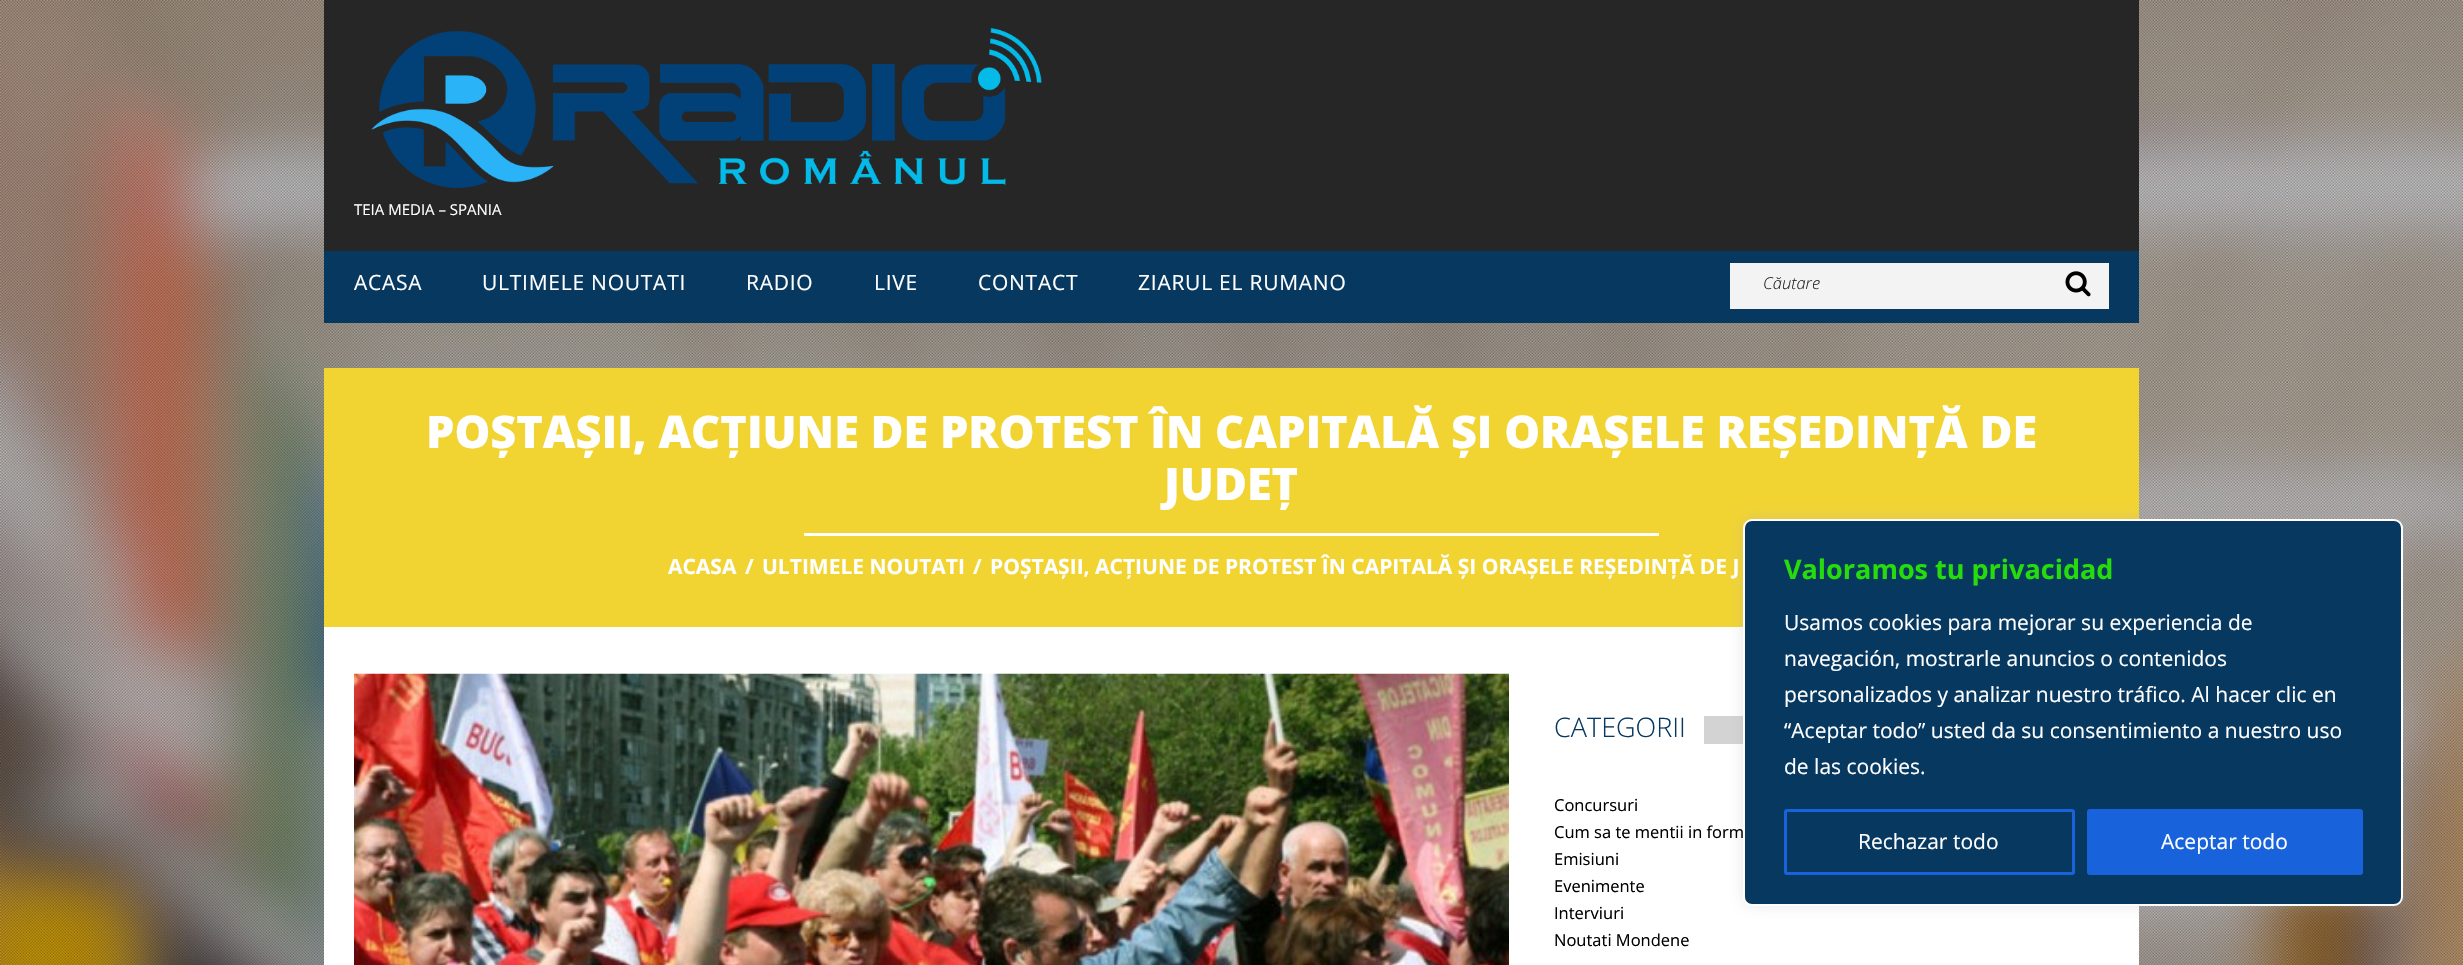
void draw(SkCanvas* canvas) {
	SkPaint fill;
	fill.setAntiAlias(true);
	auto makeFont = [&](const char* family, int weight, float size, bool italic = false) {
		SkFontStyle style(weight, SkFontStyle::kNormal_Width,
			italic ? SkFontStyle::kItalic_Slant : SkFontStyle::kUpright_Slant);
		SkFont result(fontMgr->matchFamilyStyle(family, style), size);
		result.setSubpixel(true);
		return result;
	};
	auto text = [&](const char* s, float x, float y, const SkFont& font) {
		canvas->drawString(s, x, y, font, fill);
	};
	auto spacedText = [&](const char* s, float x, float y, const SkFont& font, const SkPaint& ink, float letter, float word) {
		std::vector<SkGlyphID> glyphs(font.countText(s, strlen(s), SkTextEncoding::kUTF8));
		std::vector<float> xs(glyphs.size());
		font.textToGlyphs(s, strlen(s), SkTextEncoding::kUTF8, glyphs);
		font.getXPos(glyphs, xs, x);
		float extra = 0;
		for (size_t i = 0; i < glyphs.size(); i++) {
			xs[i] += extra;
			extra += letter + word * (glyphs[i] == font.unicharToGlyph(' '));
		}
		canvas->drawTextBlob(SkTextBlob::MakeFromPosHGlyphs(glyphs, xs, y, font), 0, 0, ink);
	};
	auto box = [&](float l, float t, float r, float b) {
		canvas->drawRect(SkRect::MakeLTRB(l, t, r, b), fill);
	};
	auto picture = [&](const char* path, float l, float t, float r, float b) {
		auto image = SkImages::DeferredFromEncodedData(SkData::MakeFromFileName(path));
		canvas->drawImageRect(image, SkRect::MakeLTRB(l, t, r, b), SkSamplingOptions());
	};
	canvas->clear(0xFFFFFFFF);
	picture("image0.png", 0, 0, 2463, 965);
	fill.setColor(0xFF262626);
	box(324, 0, 2139, 251);
	picture("image1.png", 371, 28, 1042, 188);
	fill.setColor(0xFF073860);
	box(324, 251, 2139, 323);
	fill.setColor(0xFFF3F3F3);
	box(1730, 263, 2109, 309);
	picture("image2.png", 2065, 271, 2091, 297);
	fill.setColor(0xFFFFFFFF);
	box(324, 627, 2139, 965);
	fill.setColor(0xFFF1D432);
	box(324, 368, 2109, 627);
	fill.setColor(0xFFFFFFFF);
	box(804, 533, 1659, 536);
	fill.setColor(0xFFF1D432);
	box(2109, 368, 2139, 519);
	picture("image3.png", 354, 673, 1509, 965);
	fill.setColor(0xFFD3D3D3);
	box(1704, 716, 1743, 744);
	fill.setColor(0x4DACABAB);
	fill.setMaskFilter(SkMaskFilter::MakeBlur(kNormal_SkBlurStyle, 7.5f));
	canvas->drawRoundRect(SkRect::MakeLTRB(1743, 518, 2403, 905), 9, 9, fill);
	fill.setMaskFilter(nullptr);
	fill.setColor(0xFF073860);
	canvas->drawRoundRect(SkRect::MakeLTRB(1744, 520, 2402, 905), 8, 8, fill);
	fill.setStyle(SkPaint::kStroke_Style);
	fill.setStrokeWidth(2);
	fill.setColor(0xFFFFFFFF);
	canvas->drawRoundRect(SkRect::MakeLTRB(1744, 520, 2402, 905), 8, 8, fill);
	fill.setStrokeWidth(3);
	fill.setColor(0xFF1863DC);
	canvas->drawRoundRect(SkRect::MakeLTRB(1785.5f, 810.5f, 2073.5f, 873.5f), 1.5f, 1.5f, fill);
	fill.setStyle(SkPaint::kFill_Style);
	canvas->drawRoundRect(SkRect::MakeLTRB(2088.5f, 810.5f, 2361.5f, 873.5f), 1.5f, 1.5f, fill);
	fill.setStyle(SkPaint::kStroke_Style);
	canvas->drawRoundRect(SkRect::MakeLTRB(2088.5f, 810.5f, 2361.5f, 873.5f), 1.5f, 1.5f, fill);
	auto font1 = makeFont("Open Sans", 400, 15);
	fill.setStyle(SkPaint::kFill_Style);
	fill.setColor(0xFFFFFFFF);
	text("TEIA MEDIA – SPANIA", 354, 215, font1);
	auto font2 = makeFont("Open Sans", 400, 21);
	spacedText("ACASA", 354, 290, font2, fill, 0.75f, 0);
	spacedText("ULTIMELE NOUTATI", 482, 290, font2, fill, 0.75f, 0);
	spacedText("RADIO", 746, 290, font2, fill, 0.75f, 0);
	spacedText("LIVE", 874, 290, font2, fill, 0.75f, 0);
	spacedText("CONTACT", 978, 290, font2, fill, 0.75f, 0);
	spacedText("ZIARUL EL RUMANO", 1138, 290, font2, fill, 0.75f, 0);
	auto font3 = makeFont("Open Sans", 300, 16.5f, true);
	fill.setColor(0xFF262626);
	text("Căutare", 1763, 289, font3);
	auto font4 = makeFont("Open Sans", 800, 45);
	fill.setColor(0xFFFFFFFF);
	text("POȘTAȘII, ACȚIUNE DE PROTEST ÎN CAPITALĂ ȘI ORAȘELE REȘEDINȚĂ DE", 426, 448, font4);
	text("JUDEȚ", 1164, 500, font4);
	auto font5 = makeFont("Open Sans", 700, 21);
	text("ACASA", 668, 574, font5);
	text("/", 745, 574, font5);
	text("ULTIMELE NOUTATI", 762, 574, font5);
	text("/", 973, 574, font5);
	text("POȘTAȘII, ACȚIUNE DE PROTEST ÎN CAPITALĂ ȘI ORAȘELE REȘEDINȚĂ DE J", 990, 574, font5);
	auto font6 = makeFont("Open Sans", 300, 27);
	fill.setColor(0xFF073860);
	text("CATEGORII", 1554, 737, font6);
	auto font7 = makeFont("Open Sans", 400, 16.5f);
	fill.setColor(0xFF000000);
	text("Concursuri", 1554, 811, font7);
	text("Cum sa te mentii in form", 1554, 838, font7);
	text("Emisiuni", 1554, 865, font7);
	text("Evenimente", 1554, 892, font7);
	text("Interviuri", 1554, 919, font7);
	text("Noutati Mondene", 1554, 946, font7);
	auto font8 = makeFont("Open Sans", 700, 27);
	fill.setColor(0xFF26DC0B);
	text("Valoramos tu privacidad", 1784, 579, font8);
	fill.setColor(0xFFFFFFFF);
	text("Usamos cookies para mejorar su experiencia de", 1784, 630, font2);
	text("navegación, mostrarle anuncios o contenidos", 1784, 666, font2);
	text("personalizados y analizar nuestro tráfico. Al hacer clic en", 1784, 702, font2);
	text("“Aceptar todo” usted da su consentimiento a nuestro uso", 1784, 738, font2);
	text("de las cookies.", 1784, 774, font2);
	text("Rechazar todo", 1858, 849, font2);
	text("Aceptar todo", 2161, 849, font2);
}
